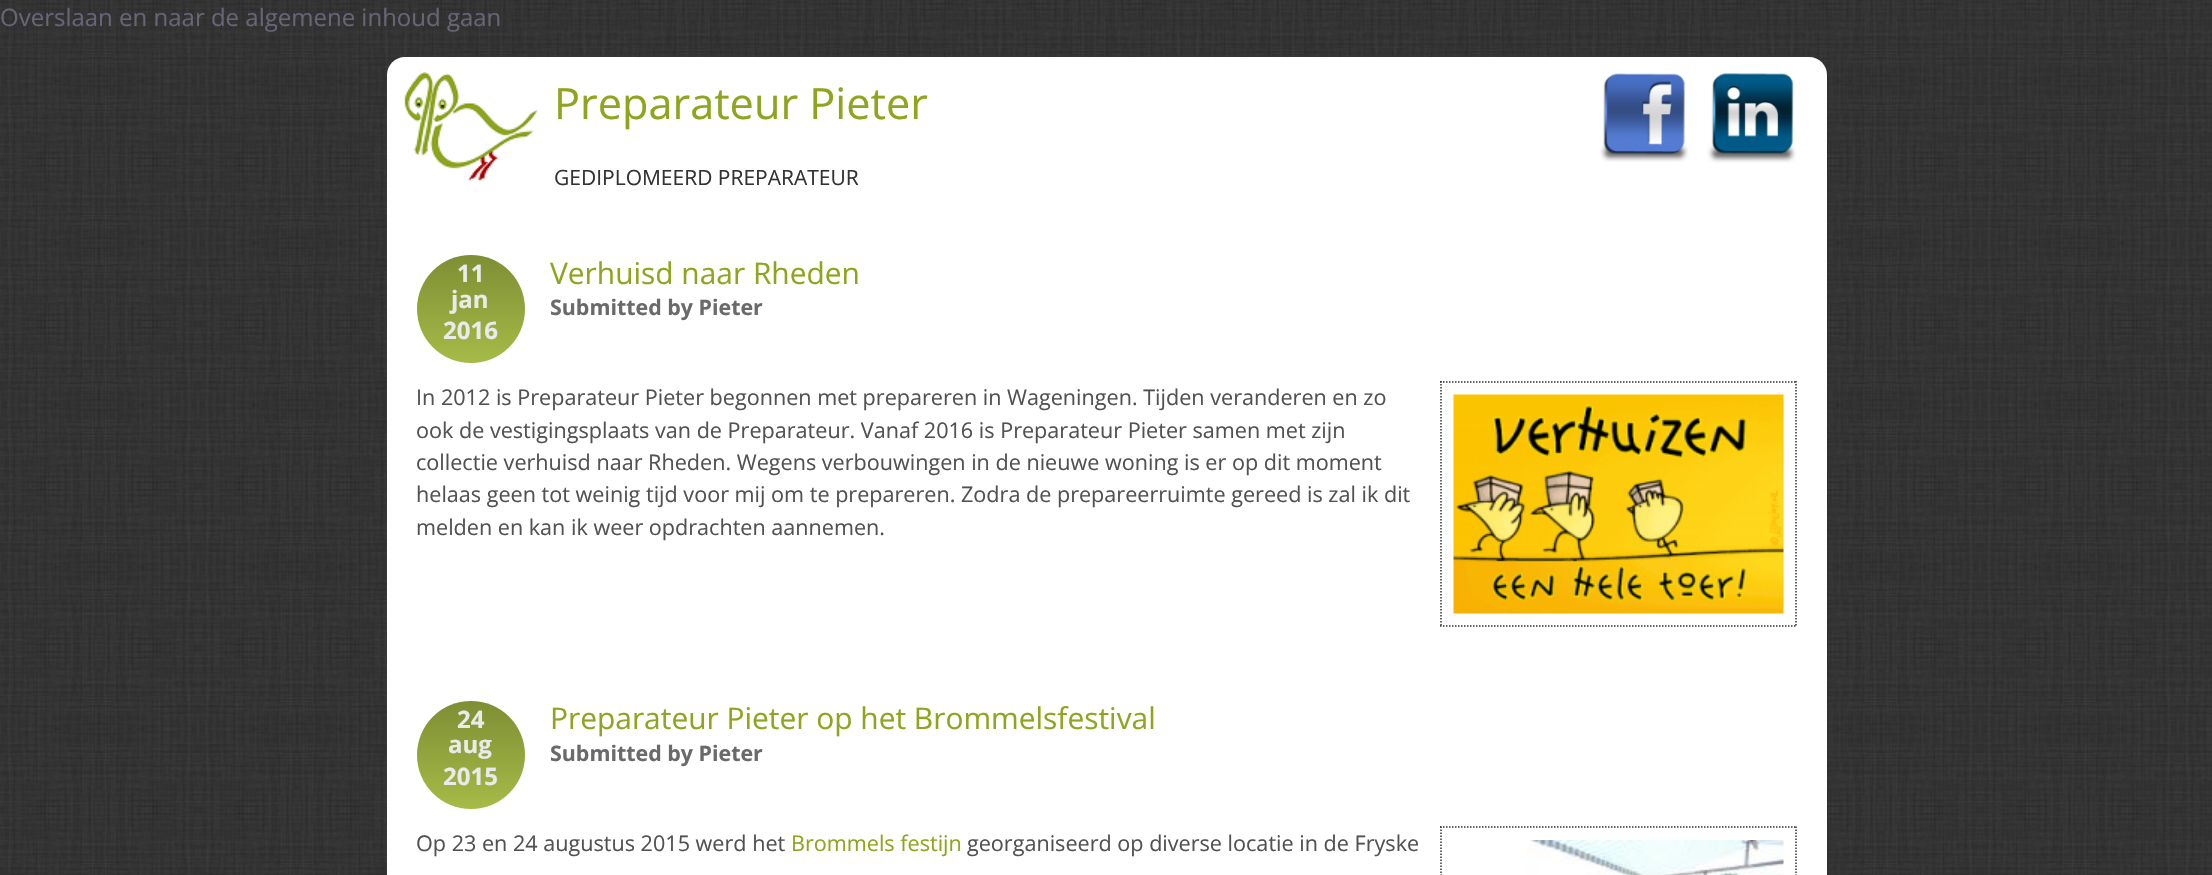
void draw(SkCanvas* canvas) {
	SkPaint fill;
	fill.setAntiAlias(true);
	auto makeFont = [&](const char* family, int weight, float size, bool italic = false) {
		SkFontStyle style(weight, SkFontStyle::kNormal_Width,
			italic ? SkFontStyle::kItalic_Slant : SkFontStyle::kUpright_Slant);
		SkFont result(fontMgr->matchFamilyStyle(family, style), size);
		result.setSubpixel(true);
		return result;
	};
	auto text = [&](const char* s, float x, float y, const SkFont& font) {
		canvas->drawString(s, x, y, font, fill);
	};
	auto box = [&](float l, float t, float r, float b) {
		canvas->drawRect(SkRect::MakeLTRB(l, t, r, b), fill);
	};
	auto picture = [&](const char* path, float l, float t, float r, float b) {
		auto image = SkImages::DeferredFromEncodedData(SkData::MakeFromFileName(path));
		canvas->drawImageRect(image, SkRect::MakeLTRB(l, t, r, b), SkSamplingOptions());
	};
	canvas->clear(0xFFFFFFFF);
	picture("image0.png", 0, 0, 2212, 875);
	fill.setColor(0xFFFFFFFF);
	canvas->drawPath(SkPathBuilder().moveTo(405, 57).lineTo(1809, 57).cubicTo(1819, 57, 1827, 65, 1827, 75).lineTo(1827, 225).lineTo(387, 225).lineTo(387, 75).cubicTo(387, 65, 395, 57, 405, 57).close().detach(), fill);
	picture("image1.png", 404, 72, 538, 181);
	picture("image2.png", 1600, 73, 1689, 162);
	picture("image3.png", 1707, 73, 1796, 163);
	box(387, 225, 1827, 875);
	{
		const SkColor colors[] = {0xFFA6BB47, 0xFF7E8E34};
		const float stops[] = {0, 1};
		const SkPoint ends[] = {{471, 363}, {471, 255}};
		fill.setShader(SkGradientShader::MakeLinear(ends, colors, stops, 2, SkTileMode::kClamp));
		fill.setAlpha(255);
	}
	canvas->drawCircle(471, 309, 54, fill);
	fill.setStyle(SkPaint::kStroke_Style);
	fill.setStrokeWidth(1.5f);
	fill.setShader(nullptr);
	fill.setColor(0xFF333333);
	fill.setPathEffect(SkDashPathEffect::Make({{1.5f, 1.5f}}, 0));
	canvas->drawPath(SkPathBuilder().moveTo(1440, 382).lineTo(1797, 382).detach(), fill);
	fill.setPathEffect(nullptr);
	fill.setPathEffect(SkDashPathEffect::Make({{1.5f, 1.5f}}, 0));
	canvas->drawPath(SkPathBuilder().moveTo(1796, 381).lineTo(1796, 627).detach(), fill);
	fill.setPathEffect(nullptr);
	fill.setPathEffect(SkDashPathEffect::Make({{1.5f, 1.5f}}, 0));
	canvas->drawPath(SkPathBuilder().moveTo(1440, 626).lineTo(1797, 626).detach(), fill);
	fill.setPathEffect(nullptr);
	fill.setPathEffect(SkDashPathEffect::Make({{1.5f, 1.5f}}, 0));
	canvas->drawPath(SkPathBuilder().moveTo(1441, 381).lineTo(1441, 627).detach(), fill);
	fill.setPathEffect(nullptr);
	picture("image4.png", 1453, 394, 1784, 614);
	fill.setStyle(SkPaint::kFill_Style);
	{
		const SkColor colors[] = {0xFFA6BB47, 0xFF7E8E34};
		const float stops[] = {0, 1};
		const SkPoint ends[] = {{471, 809}, {471, 701}};
		fill.setShader(SkGradientShader::MakeLinear(ends, colors, stops, 2, SkTileMode::kClamp));
		fill.setAlpha(255);
	}
	canvas->drawCircle(471, 755, 54, fill);
	fill.setStyle(SkPaint::kStroke_Style);
	fill.setShader(nullptr);
	fill.setColor(0xFF333333);
	fill.setPathEffect(SkDashPathEffect::Make({{1.5f, 1.5f}}, 0));
	canvas->drawPath(SkPathBuilder().moveTo(1440, 827).lineTo(1797, 827).detach(), fill);
	fill.setPathEffect(nullptr);
	fill.setPathEffect(SkDashPathEffect::Make({{1.5f, 1.5f}}, 0));
	canvas->drawPath(SkPathBuilder().moveTo(1441, 826.5f).lineTo(1441, 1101).detach(), fill);
	fill.setPathEffect(nullptr);
	picture("image5.png", 1526, 840, 1784, 875);
	fill.setPathEffect(SkDashPathEffect::Make({{1.5f, 1.5f}}, 0));
	canvas->drawPath(SkPathBuilder().moveTo(1796, 826.5f).lineTo(1796, 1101).detach(), fill);
	fill.setPathEffect(nullptr);
	auto font1 = makeFont("Open Sans", 400, 24);
	fill.setStyle(SkPaint::kFill_Style);
	fill.setColor(0xFF666677);
	text("Overslaan en naar de algemene inhoud gaan", 0, 26, font1);
	auto font2 = makeFont("Open Sans", 400, 43.25f);
	fill.setColor(0xFF8EA61F);
	text("Preparateur Pieter", 554, 119, font2);
	auto font3 = makeFont("Open Sans", 400, 21);
	fill.setColor(0xFF333333);
	text("GEDIPLOMEERD PREPARATEUR", 554, 185, font3);
	auto font4 = makeFont("Open Sans", 700, 24);
	fill.setColor(0xFFEAEAEA);
	text("11", 457, 282, font4);
	text("jan", 451, 308, font4);
	text("2016", 443, 339, font4);
	auto font5 = makeFont("Open Sans", 400, 29.9f);
	fill.setColor(0xFF8EA61F);
	text("Verhuisd naar Rheden", 550, 284, font5);
	auto font6 = makeFont("Open Sans", 700, 21.4f);
	fill.setColor(0xFF6A6A6A);
	text("Submitted by Pieter", 550, 315, font6);
	auto font7 = makeFont("Open Sans", 400, 21.6f);
	fill.setColor(0xFF525252);
	text("In 2012 is Preparateur Pieter begonnen met prepareren in Wageningen. Tijden veranderen en zo", 416, 405, font7);
	text("ook de vestigingsplaats van de Preparateur. Vanaf 2016 is Preparateur Pieter samen met zijn", 416, 438, font7);
	text("collectie verhuisd naar Rheden. Wegens verbouwingen in de nieuwe woning is er op dit moment", 416, 470, font7);
	text("helaas geen tot weinig tijd voor mij om te prepareren. Zodra de prepareerruimte gereed is zal ik dit", 416, 502, font7);
	text("melden en kan ik weer opdrachten aannemen.", 416, 535, font7);
	fill.setColor(0xFFEAEAEA);
	text("24", 457, 728, font4);
	text("aug", 448, 753, font4);
	text("2015", 443, 785, font4);
	fill.setColor(0xFF8EA61F);
	text("Preparateur Pieter op het Brommelsfestival", 550, 729, font5);
	fill.setColor(0xFF6A6A6A);
	text("Submitted by Pieter", 550, 761, font6);
	fill.setColor(0xFF525252);
	text("Op 23 en 24 augustus 2015 werd het", 416, 851, font7);
	fill.setColor(0xFF8EA61F);
	text("Brommels festijn", 791, 851, font7);
	fill.setColor(0xFF525252);
	text("georganiseerd op diverse locatie in de Fryske", 967, 851, font7);
}
